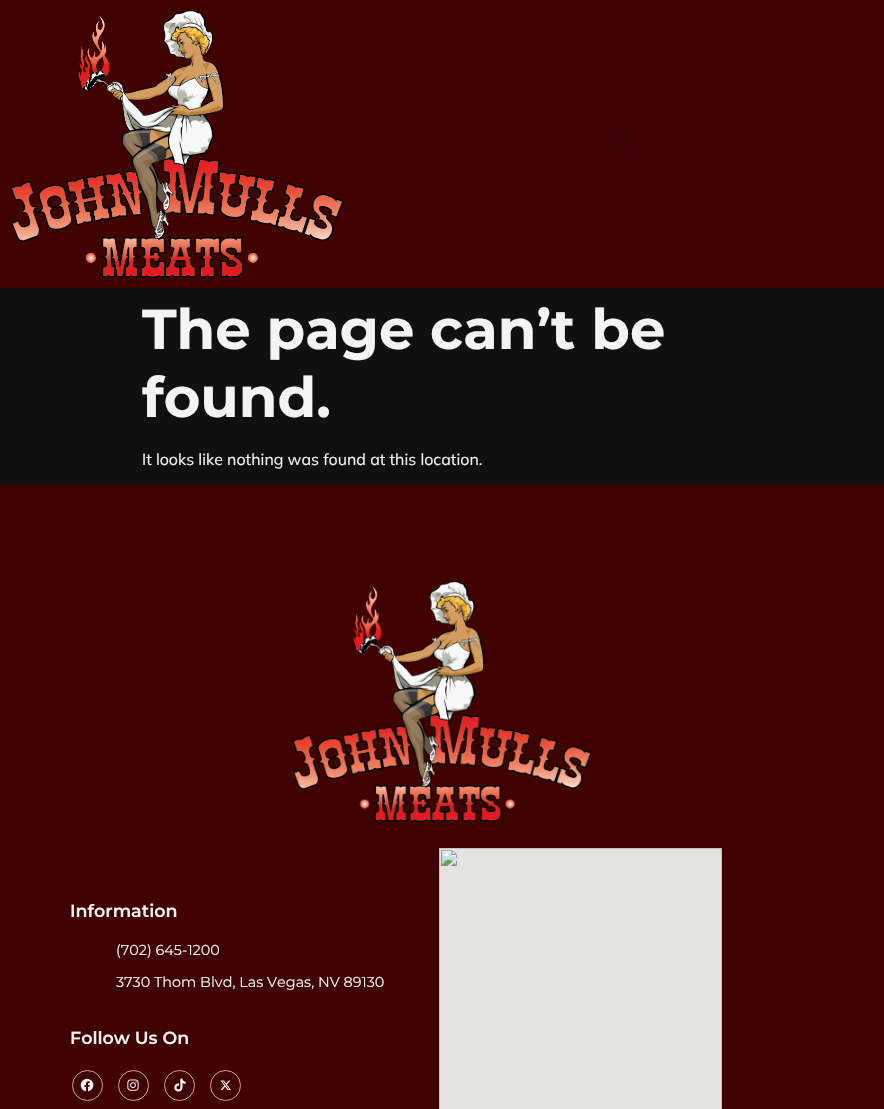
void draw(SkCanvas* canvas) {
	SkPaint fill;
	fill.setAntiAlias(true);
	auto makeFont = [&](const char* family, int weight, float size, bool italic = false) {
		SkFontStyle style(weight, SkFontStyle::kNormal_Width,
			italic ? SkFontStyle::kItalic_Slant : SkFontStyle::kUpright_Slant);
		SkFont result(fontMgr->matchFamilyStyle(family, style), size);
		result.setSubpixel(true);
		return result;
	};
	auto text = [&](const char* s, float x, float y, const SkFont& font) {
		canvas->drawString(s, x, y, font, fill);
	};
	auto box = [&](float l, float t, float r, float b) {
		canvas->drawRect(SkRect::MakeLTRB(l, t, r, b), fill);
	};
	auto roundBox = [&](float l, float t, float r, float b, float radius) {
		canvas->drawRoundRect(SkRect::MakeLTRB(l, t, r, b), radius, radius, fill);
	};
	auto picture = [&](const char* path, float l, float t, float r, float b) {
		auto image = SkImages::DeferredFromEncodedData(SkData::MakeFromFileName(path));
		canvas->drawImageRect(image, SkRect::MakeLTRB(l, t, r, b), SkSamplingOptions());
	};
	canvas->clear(0xFF101010);
	fill.setColor(0xFF400101);
	box(0, 0, 884, 288);
	picture("image0.png", 10, 10, 344, 278);
	fill.setColor(0xFF3D0101);
	roundBox(605, 123, 633, 156, 3);
	fill.setColor(0xFF400101);
	box(0, 485, 884, 1109);
	picture("image1.png", 292, 581, 592, 822);
	fill.setStyle(SkPaint::kStroke_Style);
	fill.setStrokeWidth(1);
	fill.setColor(0xFFD9A273);
	canvas->drawCircle(87.5f, 1085.5f, 15, fill);
	picture("image2.png", 80, 1078, 94, 1092);
	canvas->drawCircle(133.5f, 1085.5f, 15, fill);
	picture("image3.png", 127, 1079, 139, 1091);
	canvas->drawCircle(179.5f, 1085.5f, 15, fill);
	picture("image4.png", 174, 1078, 186, 1092);
	canvas->drawCircle(225.5f, 1085.5f, 15, fill);
	picture("image5.png", 220, 1080, 231, 1090);
	picture("image6.png", 439, 848, 722, 1109);
	auto font1 = makeFont("Montserrat", 700, 56);
	fill.setStyle(SkPaint::kFill_Style);
	fill.setColor(0xFFF4F4F4);
	text("The page can’t be", 142, 349, font1);
	text("found.", 142, 417, font1);
	auto font2 = makeFont("Mulish", 400, 16);
	text("It looks like nothing was found at this location.", 142, 465, font2);
	auto font3 = makeFont("Montserrat", 600, 17.5f);
	text("Information", 70, 917, font3);
	auto font4 = makeFont("Montserrat", 400, 14.4f);
	text("(702) 645-1200", 116, 955, font4);
	text("3730 Thom Blvd, Las Vegas, NV 89130", 116, 987, font4);
	text("Follow Us On", 70, 1044, font3);
}
